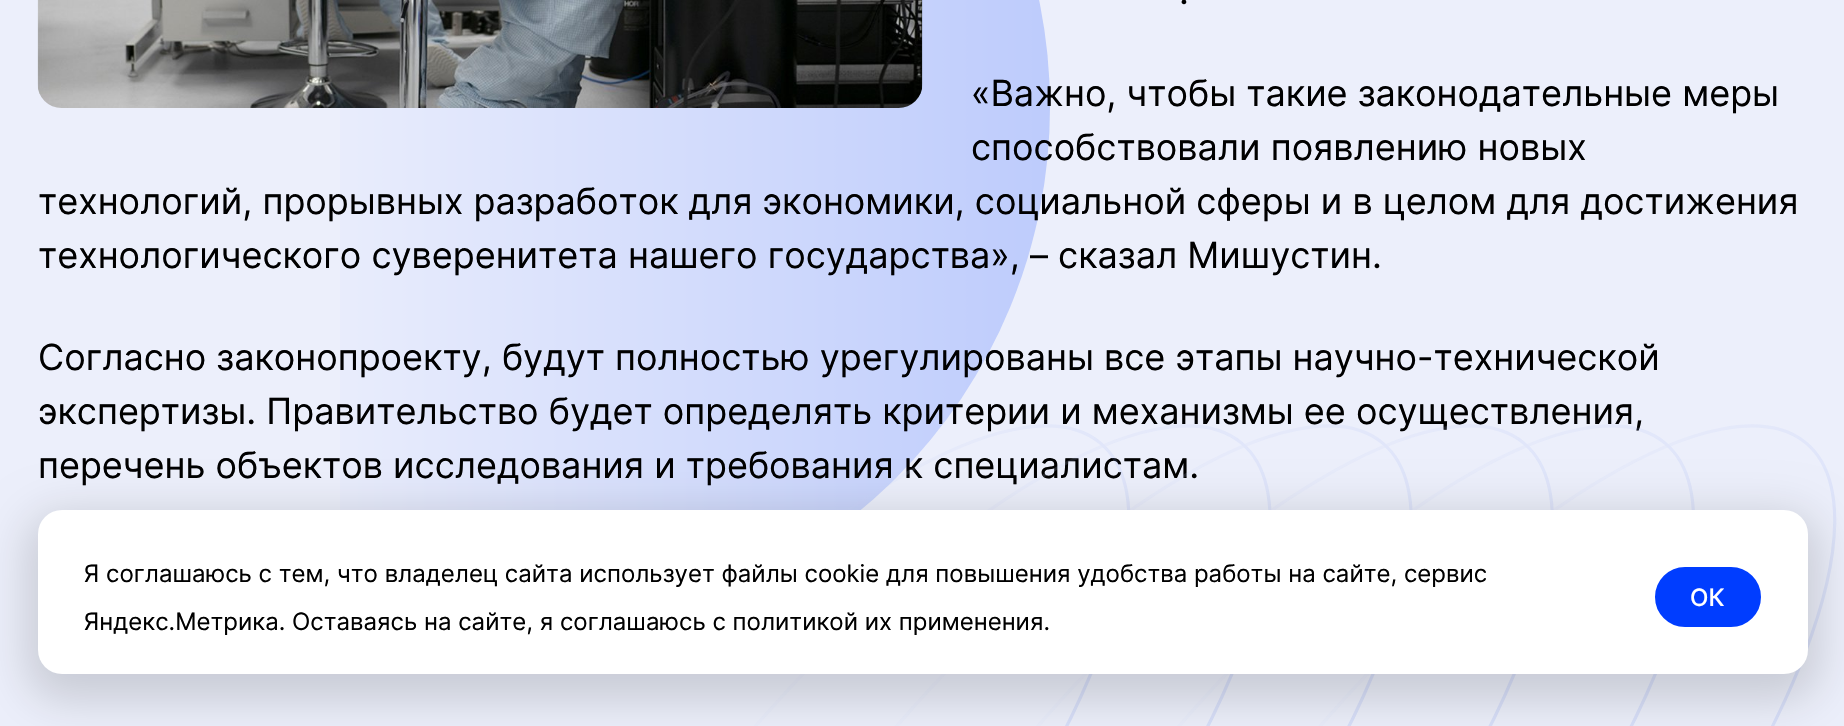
void draw(SkCanvas* canvas) {
	SkPaint fill;
	fill.setAntiAlias(true);
	auto makeFont = [&](const char* family, int weight, float size, bool italic = false) {
		SkFontStyle style(weight, SkFontStyle::kNormal_Width,
			italic ? SkFontStyle::kItalic_Slant : SkFontStyle::kUpright_Slant);
		SkFont result(fontMgr->matchFamilyStyle(family, style), size);
		result.setSubpixel(true);
		return result;
	};
	auto text = [&](const char* s, float x, float y, const SkFont& font) {
		canvas->drawString(s, x, y, font, fill);
	};
	auto roundBox = [&](float l, float t, float r, float b, float radius) {
		canvas->drawRoundRect(SkRect::MakeLTRB(l, t, r, b), radius, radius, fill);
	};
	auto picture = [&](const char* path, float l, float t, float r, float b) {
		auto image = SkImages::DeferredFromEncodedData(SkData::MakeFromFileName(path));
		canvas->drawImageRect(image, SkRect::MakeLTRB(l, t, r, b), SkSamplingOptions());
	};
	canvas->clear(0xFFECEFFB);
	picture("image1.png", 340, 0, 1050, 510);
	picture("image0.png", 37, 0, 923, 108);
	auto font1 = makeFont("Inter", 400, 36);
	fill.setColor(0xFF000000);
	text(".", 1179, 4, font1);
	text("«Важно, чтобы такие законодательные меры", 971, 106, font1);
	text("способствовали появлению новых", 971, 160, font1);
	text("технологий, прорывных разработок для экономики, социальной сферы и в целом для достижения", 38, 214, font1);
	text("технологического суверенитета нашего государства», – сказал Мишустин.", 38, 268, font1);
	text("Согласно законопроекту, будут полностью урегулированы все этапы научно-технической", 38, 370, font1);
	text("экспертизы. Правительство будет определять критерии и механизмы ее осуществления,", 38, 424, font1);
	text("перечень объектов исследования и требования к специалистам.", 38, 478, font1);
	picture("image2.png", 754, 424, 1837, 726);
	fill.setColor(0x26000000);
	fill.setMaskFilter(SkMaskFilter::MakeBlur(kNormal_SkBlurStyle, 22.5f));
	canvas->drawRoundRect(SkRect::MakeLTRB(26, 513, 1820, 701), 36, 36, fill);
	fill.setMaskFilter(nullptr);
	fill.setColor(0xFFFFFFFF);
	roundBox(38, 510, 1808, 674, 24);
	auto font2 = makeFont("Inter", 400, 24);
	fill.setColor(0xFF000000);
	text("Я соглашаюсь с тем, что владелец сайта использует файлы cookie для повышения удобства работы на сайте, сервис", 84, 582, font2);
	text("Яндекс.Метрика. Оставаясь на сайте, я соглашаюсь с политикой их применения.", 84, 630, font2);
	fill.setColor(0xFF003DFF);
	canvas->drawRoundRect(SkRect::MakeLTRB(1656, 568, 1760, 626), 29, 29, fill);
	fill.setStyle(SkPaint::kStroke_Style);
	fill.setStrokeWidth(2);
	canvas->drawRoundRect(SkRect::MakeLTRB(1656, 568, 1760, 626), 29, 29, fill);
	auto font3 = makeFont("Inter", 500, 24);
	fill.setStyle(SkPaint::kFill_Style);
	fill.setColor(0xFFFFFFFF);
	text("ОК", 1690, 606, font3);
}
